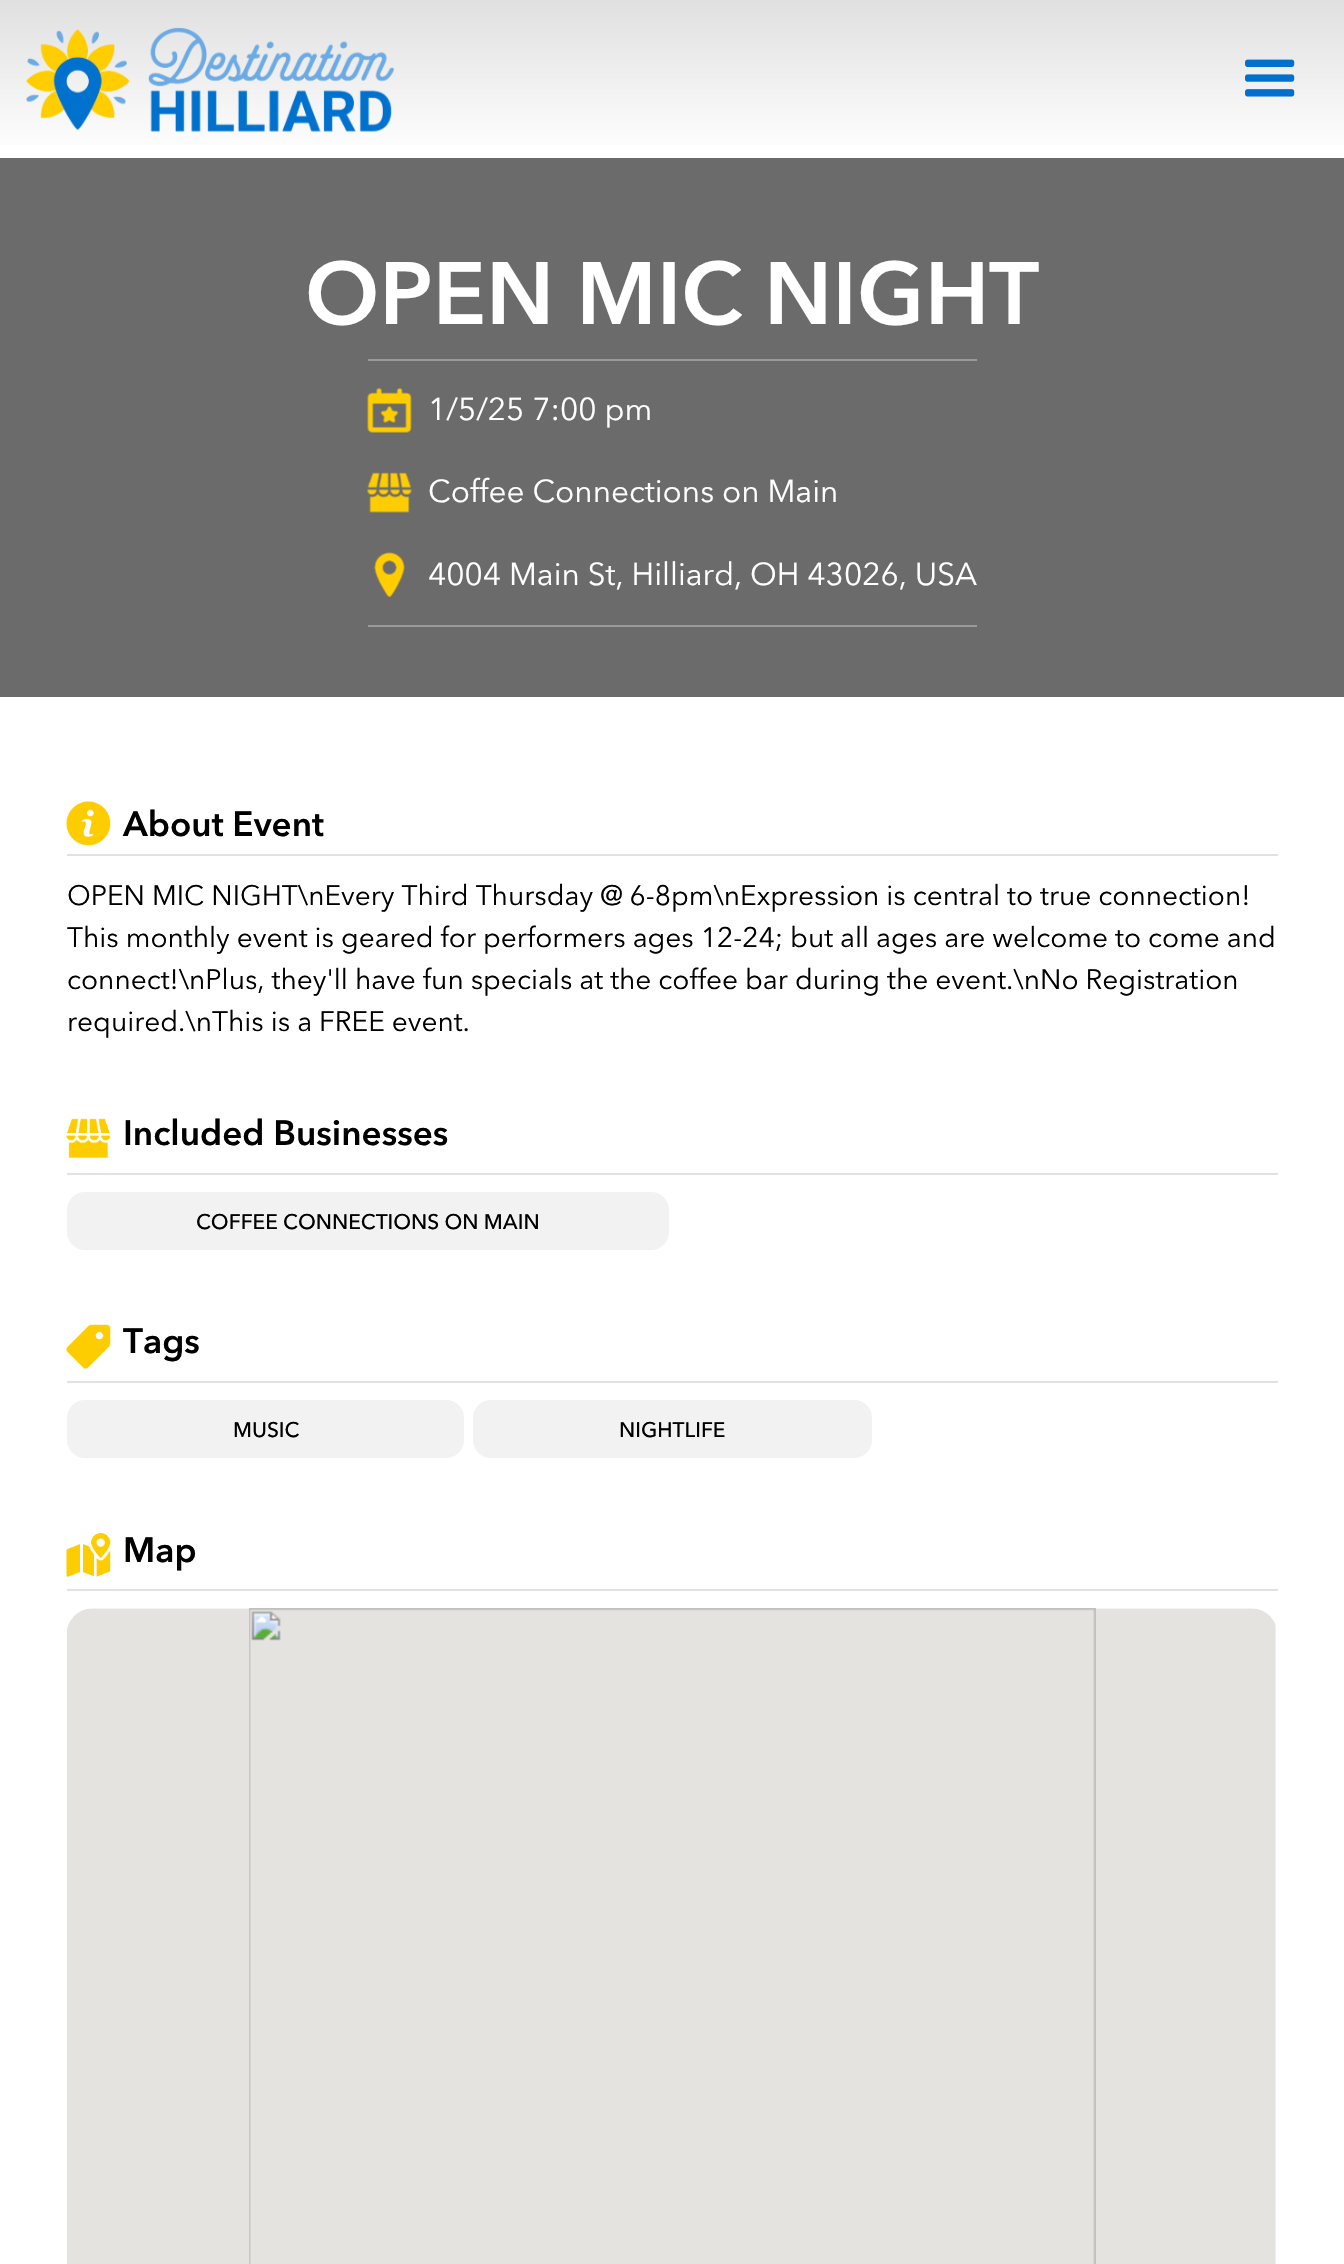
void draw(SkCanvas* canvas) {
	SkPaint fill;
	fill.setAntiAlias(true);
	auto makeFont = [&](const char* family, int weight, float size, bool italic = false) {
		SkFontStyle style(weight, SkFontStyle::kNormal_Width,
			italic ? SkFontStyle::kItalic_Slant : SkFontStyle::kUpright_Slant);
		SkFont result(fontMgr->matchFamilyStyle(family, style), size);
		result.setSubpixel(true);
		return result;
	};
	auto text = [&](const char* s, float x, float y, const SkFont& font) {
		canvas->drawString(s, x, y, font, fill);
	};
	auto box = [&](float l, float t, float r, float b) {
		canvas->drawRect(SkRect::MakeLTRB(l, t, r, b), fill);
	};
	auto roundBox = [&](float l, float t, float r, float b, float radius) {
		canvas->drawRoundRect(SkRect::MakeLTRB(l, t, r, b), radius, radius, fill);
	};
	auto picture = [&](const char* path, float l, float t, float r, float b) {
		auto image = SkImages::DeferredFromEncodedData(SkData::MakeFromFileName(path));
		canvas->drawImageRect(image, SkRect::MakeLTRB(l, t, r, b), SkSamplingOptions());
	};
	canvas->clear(0xFFFFFFFF);
	{
		const SkColor colors[] = {0xFFE0E0E0, 0xFFFFFFFF};
		const float stops[] = {0, 1};
		const SkPoint ends[] = {{672, 0}, {672, 158}};
		fill.setShader(SkGradientShader::MakeLinear(ends, colors, stops, 2, SkTileMode::kClamp));
		fill.setAlpha(255);
	}
	box(0, 0, 1344, 145);
	picture("image0.png", 26, 27, 394, 132);
	picture("image1.png", 1245, 59, 1295, 97);
	fill.setShader(nullptr);
	fill.setColor(0xFF6B6B6B);
	box(0, 158, 1344, 697);
	fill.setColor(0xFF9A9A9A);
	box(368, 359, 977, 361);
	box(368, 625, 977, 627);
	picture("image2.png", 367, 388, 412, 433);
	picture("image3.png", 367, 472, 412, 513);
	picture("image4.png", 374, 552, 405, 597);
	fill.setColor(0xFFE2E2E2);
	box(67, 854, 1278, 856);
	picture("image5.png", 66, 801, 111, 846);
	box(67, 1173, 1278, 1175);
	picture("image6.png", 66, 1118, 111, 1158);
	fill.setColor(0xFFF2F2F2);
	roundBox(67, 1192, 669, 1250, 18);
	fill.setColor(0xFFE2E2E2);
	box(67, 1381, 1278, 1383);
	picture("image7.png", 66, 1324, 111, 1369);
	fill.setColor(0xFFF2F2F2);
	roundBox(67, 1400, 464, 1458, 18);
	roundBox(473, 1400, 872, 1458, 18);
	fill.setColor(0xFFE2E2E2);
	box(67, 1589, 1278, 1591);
	picture("image8.png", 66, 1533, 111, 1577);
	picture("image9.png", 66, 1608, 1276, 2264);
	auto font1 = makeFont("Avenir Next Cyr", 700, 87.5f);
	fill.setColor(0xFFFFFFFF);
	text("OPEN MIC NIGHT", 305, 324, font1);
	auto font2 = makeFont("Avenir Next Cyr", 400, 31.5f);
	text("1/5/25 7:00 pm", 428, 420, font2);
	text("Coffee Connections on Main", 428, 502, font2);
	text("4004 Main St, Hilliard, OH 43026, USA", 428, 585, font2);
	auto font3 = makeFont("Avenir Next Cyr", 700, 35);
	{
		const SkColor colors[] = {0xFFFFFFFF, 0xFF000000};
		const float stops[] = {0, 0.16f};
		const SkPoint ends[] = {{1277, 823}, {123, 823}};
		fill.setShader(SkGradientShader::MakeLinear(ends, colors, stops, 2, SkTileMode::kClamp));
		fill.setAlpha(255);
	}
	text("About Event", 123, 836, font3);
	auto font4 = makeFont("Avenir Next Cyr", 400, 28);
	fill.setShader(nullptr);
	fill.setColor(0xFF000000);
	text("OPEN MIC NIGHT\\nEvery Third Thursday @ 6-8pm\\nExpression is central to true connection!", 67, 905, font4);
	text("This monthly event is geared for performers ages 12-24; but all ages are welcome to come and", 67, 947, font4);
	text("connect!\\nPlus, they'll have fun specials at the coffee bar during the event.\\nNo Registration", 67, 989, font4);
	text("required.\\nThis is a FREE event.", 67, 1031, font4);
	text("Included Businesses", 123, 1145, font3);
	auto font5 = makeFont("Avenir Next Cyr", 500, 21);
	text("COFFEE CONNECTIONS ON MAIN", 196, 1229, font5);
	text("Tags", 123, 1353, font3);
	text("MUSIC", 233, 1437, font5);
	text("NIGHTLIFE", 619, 1437, font5);
	text("Map", 123, 1562, font3);
}
